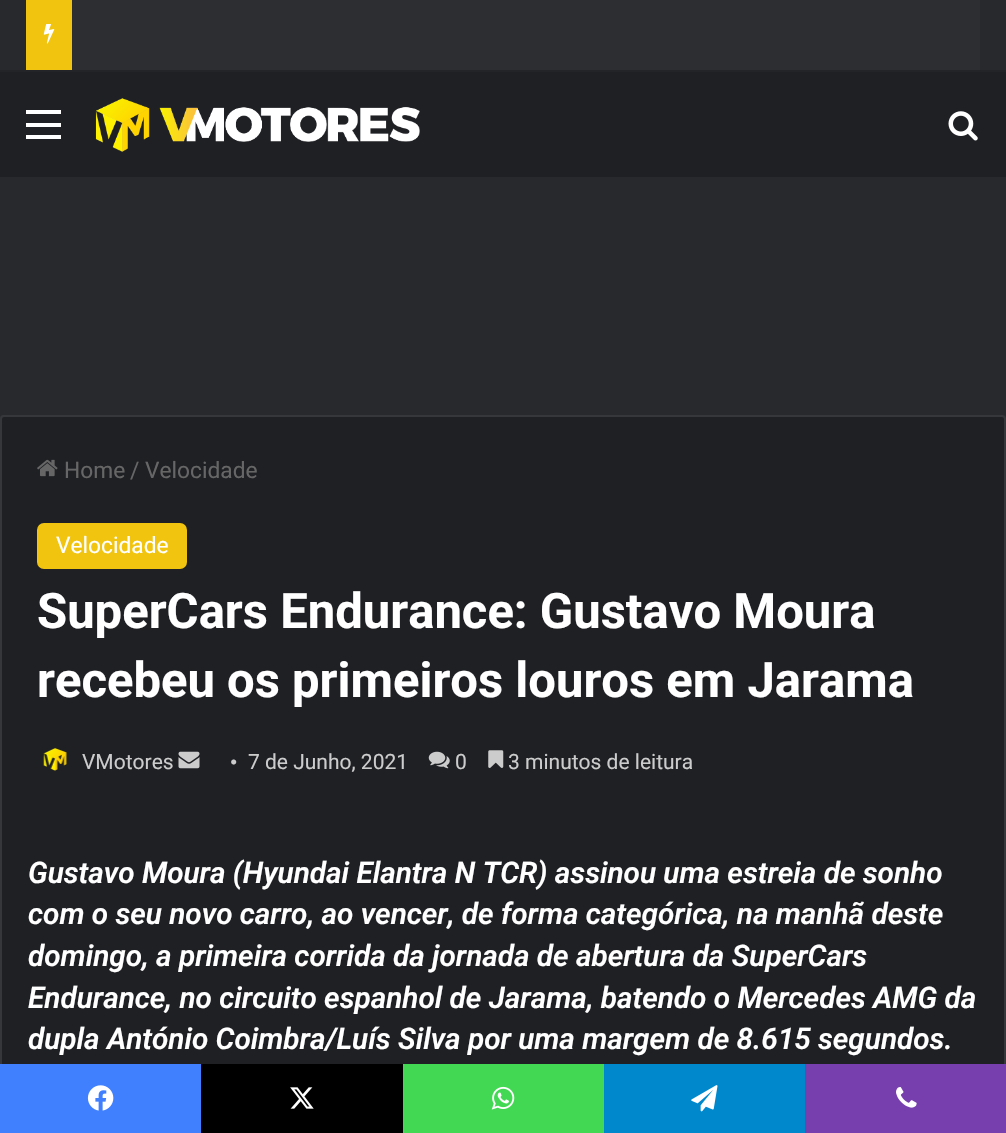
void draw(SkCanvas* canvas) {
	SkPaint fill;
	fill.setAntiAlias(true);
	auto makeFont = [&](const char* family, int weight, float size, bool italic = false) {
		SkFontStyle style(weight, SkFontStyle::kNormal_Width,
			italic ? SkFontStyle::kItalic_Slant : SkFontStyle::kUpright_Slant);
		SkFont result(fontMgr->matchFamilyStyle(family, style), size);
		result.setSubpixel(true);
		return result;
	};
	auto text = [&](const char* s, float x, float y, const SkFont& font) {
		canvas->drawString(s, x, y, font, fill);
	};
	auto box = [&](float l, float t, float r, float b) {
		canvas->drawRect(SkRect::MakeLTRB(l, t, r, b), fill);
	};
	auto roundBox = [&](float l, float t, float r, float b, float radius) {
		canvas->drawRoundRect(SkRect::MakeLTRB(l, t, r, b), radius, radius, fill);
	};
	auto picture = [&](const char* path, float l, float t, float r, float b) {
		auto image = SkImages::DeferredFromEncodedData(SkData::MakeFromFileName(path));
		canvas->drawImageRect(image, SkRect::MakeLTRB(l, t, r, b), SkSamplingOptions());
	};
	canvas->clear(0xFF27292D);
	fill.setColor(0xFF232428);
	box(0, 70, 1006, 72);
	fill.setColor(0xFF2C2E32);
	box(72, 0, 980, 70);
	fill.setColor(0xFFF1C40F);
	box(26, 0, 72, 70);
	picture("image0.png", 43, 24, 55, 44);
	fill.setColor(0xFF1F2024);
	box(0, 72, 1006, 177);
	fill.setColor(0xFFFFFFFF);
	box(26, 123, 61, 127);
	box(26, 110, 61, 114);
	box(26, 135, 61, 139);
	picture("image1.png", 95, 98, 420, 152);
	picture("image2.png", 948, 111, 978, 141);
	fill.setColor(0xFF1F2024);
	roundBox(0, 415, 1006, 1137, 4);
	fill.setStyle(SkPaint::kStroke_Style);
	fill.setStrokeWidth(2);
	fill.setColor(0x1AFFFFFF);
	canvas->drawRoundRect(SkRect::MakeLTRB(1, 416, 1005, 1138), 3, 3, fill);
	picture("image3.png", 37, 459, 58, 477);
	fill.setStyle(SkPaint::kFill_Style);
	fill.setColor(0xFFF1C40F);
	roundBox(37, 523, 187, 569, 7);
	picture("image4.png", 43, 748, 67, 771);
	picture("image5.png", 178, 751, 200, 769);
	picture("image6.png", 428, 751, 450, 769);
	picture("image7.png", 488, 750, 504, 768);
	fill.setColor(0xFF4080FF);
	box(0, 1064, 201, 1133);
	picture("image8.png", 87, 1085, 114, 1111);
	fill.setColor(0xFF000000);
	box(201, 1064, 403, 1133);
	picture("image9.png", 290, 1087, 314, 1109);
	fill.setColor(0xFF43D854);
	box(403, 1064, 604, 1133);
	picture("image10.png", 491, 1086, 515, 1110);
	fill.setColor(0xFF0088CC);
	box(604, 1064, 805, 1133);
	picture("image11.png", 691, 1085, 718, 1112);
	fill.setColor(0xFF773EAD);
	box(805, 1064, 1006, 1133);
	picture("image12.png", 896, 1087, 917, 1108);
	auto font1 = makeFont("Roboto", 400, 22.75f);
	fill.setColor(0xFF666666);
	text("Home", 64, 478, font1);
	text("/", 130, 478, font1);
	text("Velocidade", 145, 478, font1);
	fill.setColor(0xFFFFFFFF);
	text("Velocidade", 56, 553, font1);
	auto font2 = makeFont("Roboto", 700, 49);
	text("SuperCars Endurance: Gustavo Moura", 37, 628, font2);
	text("recebeu os primeiros louros em Jarama", 37, 697, font2);
	auto font3 = makeFont("Roboto", 400, 21);
	fill.setColor(0xFFCCCCCC);
	text("VMotores", 82, 769, font3);
	auto font4 = makeFont("Liberation Serif", 400, 21);
	text("•", 230, 769, font4);
	text("7 de Junho, 2021", 248, 769, font3);
	text("0", 455, 769, font3);
	text("3 minutos de leitura", 508, 769, font3);
	auto font5 = makeFont("Roboto", 600, 29.75f, true);
	fill.setColor(0xFFFFFFFF);
	text("Gustavo Moura (Hyundai Elantra N TCR) assinou uma estreia de sonho", 28, 883, font5);
	text("com o seu novo carro, ao vencer, de forma categórica, na manhã deste", 28, 924, font5);
	text("domingo, a primeira corrida da jornada de abertura da SuperCars", 28, 966, font5);
	text("Endurance, no circuito espanhol de Jarama, batendo o Mercedes AMG da", 28, 1008, font5);
	text("dupla António Coimbra/Luís Silva por uma margem de 8.615 segundos.", 28, 1049, font5);
}
